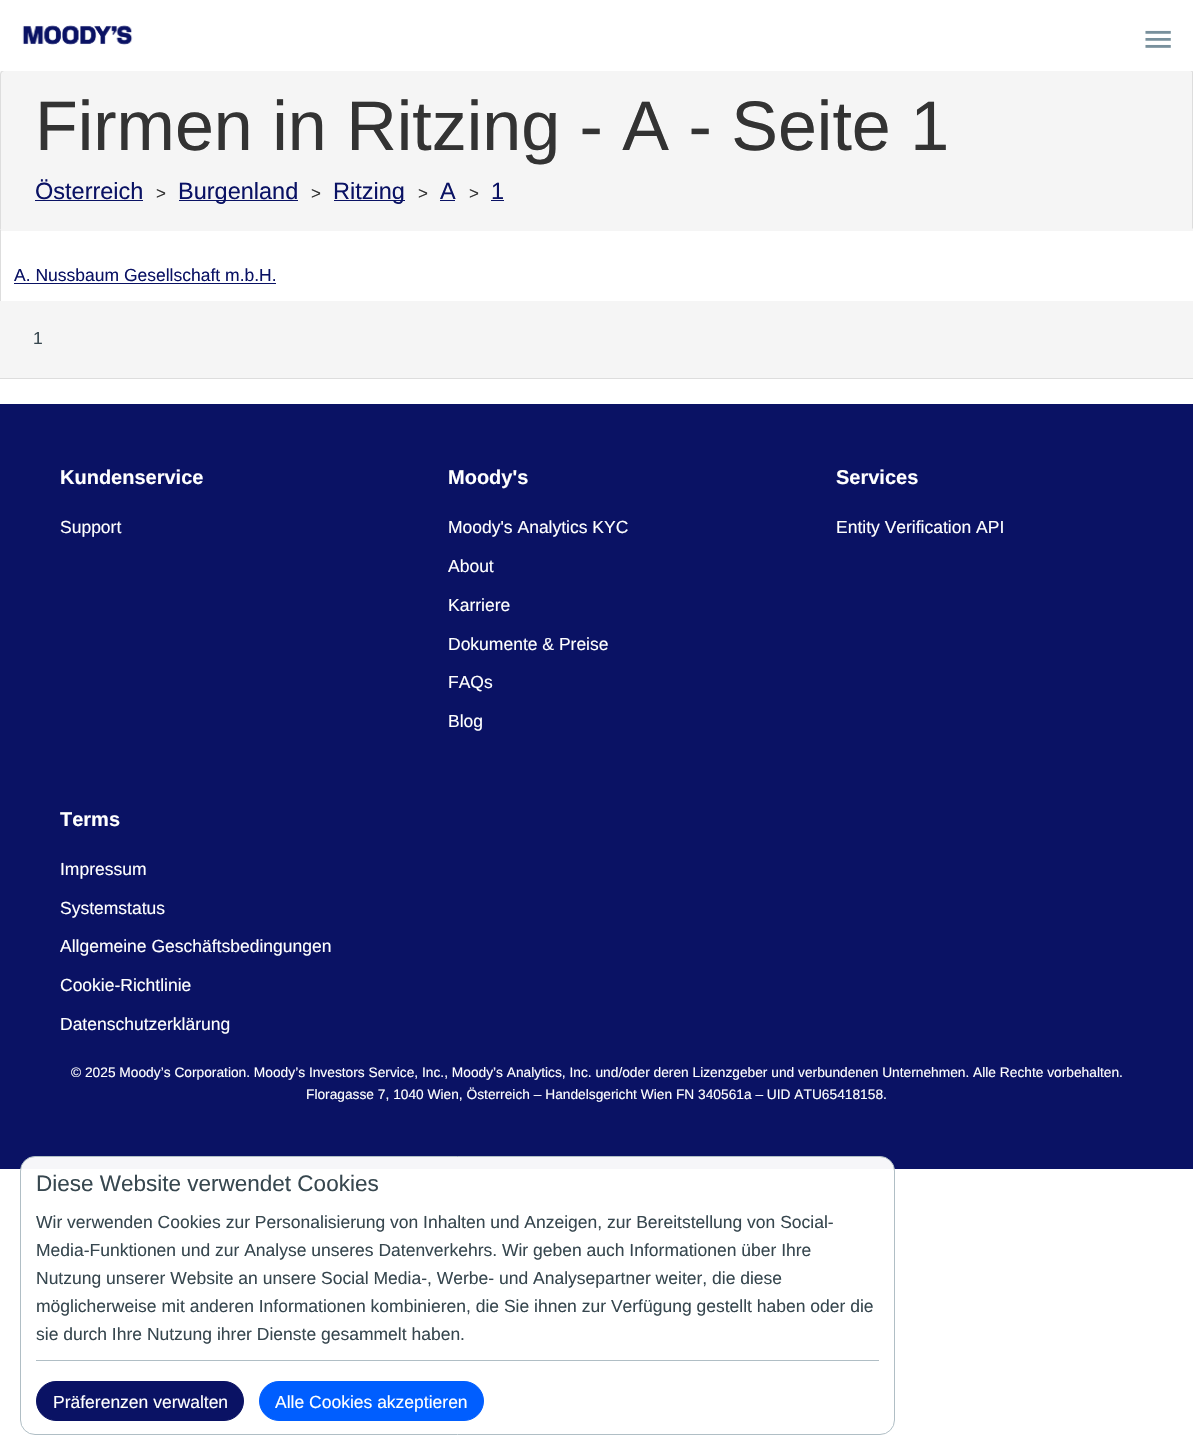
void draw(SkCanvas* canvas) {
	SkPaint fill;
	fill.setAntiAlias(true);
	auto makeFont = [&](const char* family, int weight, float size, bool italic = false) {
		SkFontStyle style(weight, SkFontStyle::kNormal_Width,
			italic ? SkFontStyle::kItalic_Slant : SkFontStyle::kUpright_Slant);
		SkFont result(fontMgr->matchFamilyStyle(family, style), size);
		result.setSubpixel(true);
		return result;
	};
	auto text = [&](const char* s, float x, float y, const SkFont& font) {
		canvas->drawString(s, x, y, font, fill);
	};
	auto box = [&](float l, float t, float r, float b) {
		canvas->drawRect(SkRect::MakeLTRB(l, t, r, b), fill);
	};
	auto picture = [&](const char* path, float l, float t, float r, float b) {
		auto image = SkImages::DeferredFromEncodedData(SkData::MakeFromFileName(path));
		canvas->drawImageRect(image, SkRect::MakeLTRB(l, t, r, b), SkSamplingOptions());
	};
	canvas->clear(0xFFFFFFFF);
	fill.setColor(0xFFF5F5F5);
	canvas->drawPath(SkPathBuilder().moveTo(4, 70).lineTo(1190, 70).cubicTo(1192, 70, 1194, 72, 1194, 74).lineTo(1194, 230).lineTo(0, 230).lineTo(0, 74).cubicTo(0, 72, 2, 70, 4, 70).close().detach(), fill);
	fill.setColor(0xFFDDDDDD);
	canvas->drawPath(SkPathBuilder().moveTo(4, 70).lineTo(1, 71).lineTo(2, 72).lineTo(4, 71).lineTo(1190, 71).cubicTo(1191, 71, 1191, 71, 1192, 72).lineTo(1193, 71).lineTo(1190, 70).close().detach(), fill);
	fill.setColor(0xFFFFFFFF);
	box(1, 70, 1193, 71);
	picture("image0.png", 22, 25, 133, 45);
	picture("image1.png", 1145, 30, 1171, 48);
	fill.setColor(0xFFDDDDDD);
	canvas->drawPath(SkPathBuilder().moveTo(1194, 73).lineTo(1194, 230).lineTo(1192, 228).lineTo(1192, 74).lineTo(1192, 72).lineTo(1193, 71).close().detach(), fill);
	canvas->drawPath(SkPathBuilder().moveTo(0, 230).lineTo(1, 229).lineTo(1, 74).lineTo(2, 72).lineTo(1, 71).lineTo(0, 74).close().detach(), fill);
	fill.setColor(0xFF0A1264);
	box(35, 200, 143, 201);
	box(179, 200, 298, 201);
	box(334, 200, 405, 201);
	box(440, 200, 455, 201);
	box(491, 200, 504, 201);
	fill.setColor(0xFFF5F5F5);
	box(0, 230, 1193, 231);
	fill.setColor(0xFFDDDDDD);
	box(0, 378, 1193, 379);
	box(0, 230, 1, 379);
	fill.setColor(0xFF0A1264);
	box(14, 283, 276, 284);
	fill.setColor(0xFFF5F5F5);
	box(0, 301, 1193, 378);
	fill.setColor(0xFF0A1264);
	box(0, 404, 1193, 1169);
	fill.setColor(0xF5FFFFFF);
	canvas->drawRoundRect(SkRect::MakeLTRB(20.5f, 1156.5f, 894.5f, 1434.5f), 14.5f, 14.5f, fill);
	fill.setStyle(SkPaint::kStroke_Style);
	fill.setStrokeWidth(1);
	fill.setColor(0xFFB0BEC5);
	canvas->drawRoundRect(SkRect::MakeLTRB(20.5f, 1156.5f, 894.5f, 1434.5f), 14.5f, 14.5f, fill);
	fill.setStyle(SkPaint::kFill_Style);
	box(36, 1360, 879, 1361);
	fill.setColor(0xFF0A1264);
	canvas->drawRoundRect(SkRect::MakeLTRB(36.5f, 1381.5f, 243.5f, 1420.5f), 19.5f, 19.5f, fill);
	fill.setStyle(SkPaint::kStroke_Style);
	canvas->drawRoundRect(SkRect::MakeLTRB(36.5f, 1381.5f, 243.5f, 1420.5f), 19.5f, 19.5f, fill);
	fill.setStyle(SkPaint::kFill_Style);
	fill.setColor(0xFF005EFF);
	canvas->drawRoundRect(SkRect::MakeLTRB(259.5f, 1381.5f, 483.5f, 1420.5f), 19.5f, 19.5f, fill);
	fill.setStyle(SkPaint::kStroke_Style);
	canvas->drawRoundRect(SkRect::MakeLTRB(259.5f, 1381.5f, 483.5f, 1420.5f), 19.5f, 19.5f, fill);
	auto font1 = makeFont("Liberation Sans", 400, 70);
	fill.setStyle(SkPaint::kFill_Style);
	fill.setColor(0xFF333333);
	text("Firmen in Ritzing - A - Seite 1", 35, 150, font1);
	auto font2 = makeFont("Liberation Sans", 400, 23.5f);
	fill.setColor(0xFF0A1264);
	text("Österreich", 35, 199, font2);
	auto font3 = makeFont("Liberation Sans", 400, 17);
	fill.setColor(0xFF333333);
	text(">", 156, 199, font3);
	fill.setColor(0xFF0A1264);
	text("Burgenland", 178, 199, font2);
	fill.setColor(0xFF333333);
	text(">", 311, 199, font3);
	fill.setColor(0xFF0A1264);
	text("Ritzing", 333, 199, font2);
	fill.setColor(0xFF333333);
	text(">", 418, 199, font3);
	fill.setColor(0xFF0A1264);
	text("A", 440, 199, font2);
	fill.setColor(0xFF333333);
	text(">", 469, 199, font3);
	fill.setColor(0xFF0A1264);
	text("1", 491, 199, font2);
	auto font4 = makeFont("Liberation Sans", 400, 17.5f);
	text("A. Nussbaum Gesellschaft m.b.H.", 14, 281, font4);
	fill.setColor(0xFF37474F);
	text("1", 33, 344, font4);
	auto font5 = makeFont("Liberation Sans", 700, 20);
	fill.setColor(0xFFFFFFFF);
	text("Kundenservice", 60, 484, font5);
	text("Support", 60, 533, font4);
	text("Moody's", 448, 484, font5);
	text("Moody's Analytics KYC", 448, 533, font4);
	text("About", 448, 572, font4);
	text("Karriere", 448, 611, font4);
	text("Dokumente & Preise", 448, 650, font4);
	text("FAQs", 448, 688, font4);
	text("Blog", 448, 727, font4);
	text("Services", 836, 484, font5);
	text("Entity Verification API", 836, 533, font4);
	text("Terms", 60, 826, font5);
	text("Impressum", 60, 875, font4);
	text("Systemstatus", 60, 914, font4);
	text("Allgemeine Geschäftsbedingungen", 60, 952, font4);
	text("Cookie-Richtlinie", 60, 991, font4);
	text("Datenschutzerklärung", 60, 1030, font4);
	auto font6 = makeFont("Liberation Sans", 400, 13.75f);
	text("© 2025 Moody’s Corporation. Moody’s Investors Service, Inc., Moody’s Analytics, Inc. und/oder deren Lizenzgeber und verbundenen Unternehmen. Alle Rechte vorbehalten.", 71, 1077, font6);
	text("Floragasse 7, 1040 Wien, Österreich – Handelsgericht Wien FN 340561a – UID ATU65418158.", 306, 1099, font6);
	auto font7 = makeFont("Liberation Sans", 400, 22.5f);
	fill.setColor(0xFF37474F);
	text("Diese Website verwendet Cookies", 36, 1191, font7);
	text("Wir verwenden Cookies zur Personalisierung von Inhalten und Anzeigen, zur Bereitstellung von Social-", 36, 1228, font4);
	text("Media-Funktionen und zur Analyse unseres Datenverkehrs. Wir geben auch Informationen über Ihre", 36, 1256, font4);
	text("Nutzung unserer Website an unsere Social Media-, Werbe- und Analysepartner weiter, die diese", 36, 1284, font4);
	text("möglicherweise mit anderen Informationen kombinieren, die Sie ihnen zur Verfügung gestellt haben oder die", 36, 1312, font4);
	text("sie durch Ihre Nutzung ihrer Dienste gesammelt haben.", 36, 1340, font4);
	fill.setColor(0xFFFFFFFF);
	text("Präferenzen verwalten", 53, 1408, font4);
	text("Alle Cookies akzeptieren", 275, 1408, font4);
}
